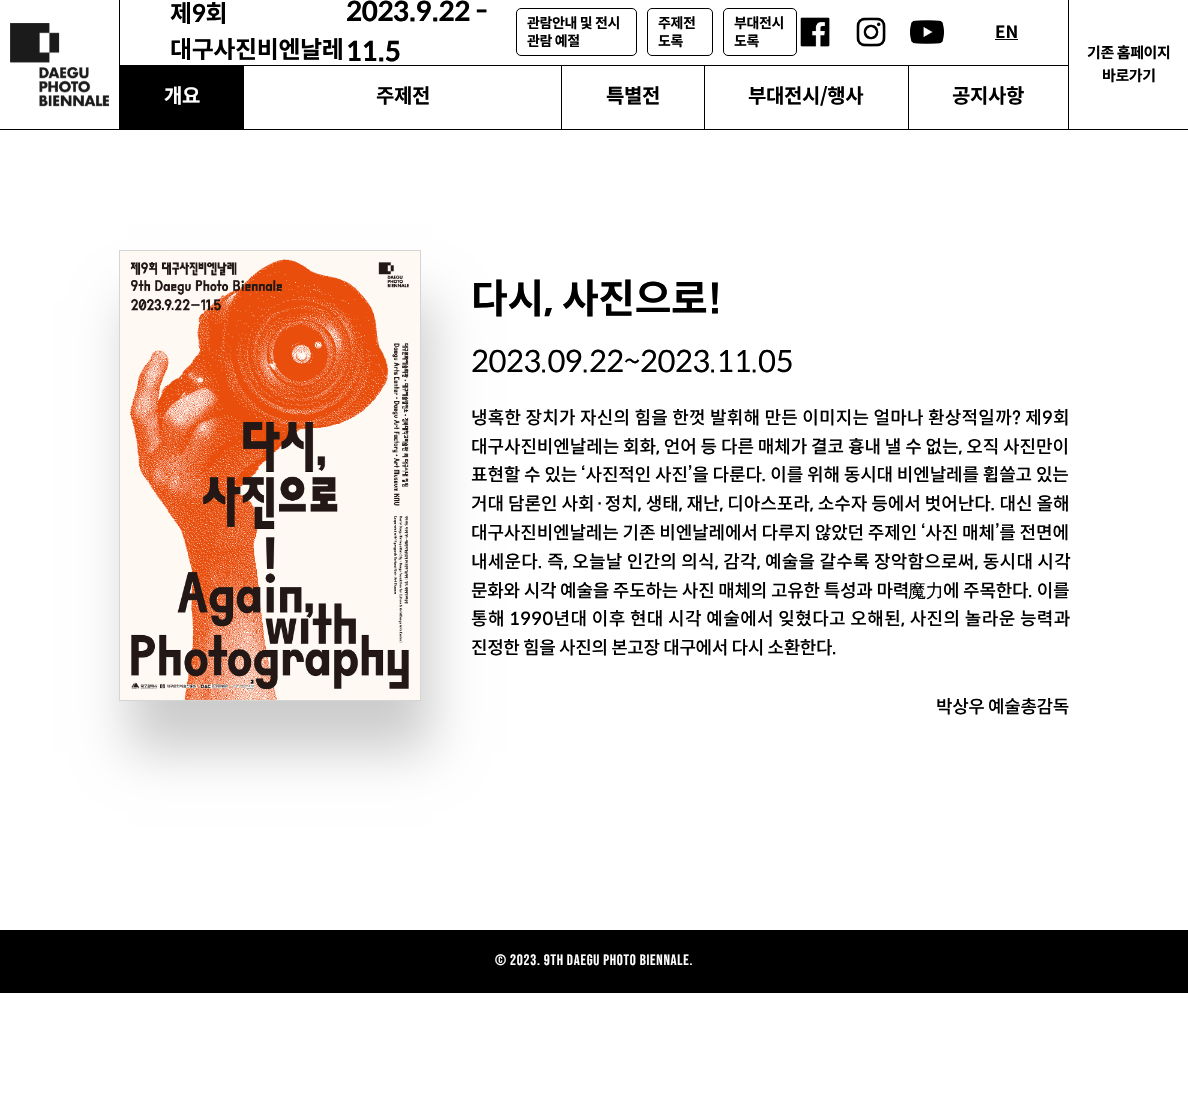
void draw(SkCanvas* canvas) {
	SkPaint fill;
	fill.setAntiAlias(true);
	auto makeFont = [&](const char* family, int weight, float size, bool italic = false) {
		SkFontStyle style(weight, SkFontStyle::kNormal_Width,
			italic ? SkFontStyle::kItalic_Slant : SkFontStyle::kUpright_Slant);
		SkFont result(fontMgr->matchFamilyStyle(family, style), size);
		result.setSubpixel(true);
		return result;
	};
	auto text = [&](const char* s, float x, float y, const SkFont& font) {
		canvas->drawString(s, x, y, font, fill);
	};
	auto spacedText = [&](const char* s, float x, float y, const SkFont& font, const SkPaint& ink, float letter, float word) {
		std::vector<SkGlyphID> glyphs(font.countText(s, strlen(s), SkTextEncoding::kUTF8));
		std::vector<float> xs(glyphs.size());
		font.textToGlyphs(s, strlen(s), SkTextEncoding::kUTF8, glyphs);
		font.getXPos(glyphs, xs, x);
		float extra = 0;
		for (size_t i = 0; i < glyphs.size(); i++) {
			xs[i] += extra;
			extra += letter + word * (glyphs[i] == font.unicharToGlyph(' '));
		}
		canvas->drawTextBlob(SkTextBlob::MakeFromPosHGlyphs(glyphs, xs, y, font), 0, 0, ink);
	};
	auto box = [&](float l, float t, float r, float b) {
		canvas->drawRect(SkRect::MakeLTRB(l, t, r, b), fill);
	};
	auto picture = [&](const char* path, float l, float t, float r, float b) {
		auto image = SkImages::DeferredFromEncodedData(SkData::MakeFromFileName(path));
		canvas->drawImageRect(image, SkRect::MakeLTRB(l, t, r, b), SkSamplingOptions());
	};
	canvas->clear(0xFFFFFFFF);
	fill.setColor(0xFF000000);
	box(0, 129, 1188, 130);
	picture("image0.png", 10, 23, 109, 107);
	box(1068, 0, 1069, 129);
	box(119, 0, 120, 129);
	fill.setStyle(SkPaint::kStroke_Style);
	fill.setStrokeWidth(1);
	canvas->drawRoundRect(SkRect::MakeLTRB(516.5f, 8.5f, 636.5f, 55.5f), 4.5f, 4.5f, fill);
	canvas->drawRoundRect(SkRect::MakeLTRB(647.5f, 8.5f, 712.5f, 55.5f), 4.5f, 4.5f, fill);
	canvas->drawRoundRect(SkRect::MakeLTRB(723.5f, 8.5f, 796.5f, 55.5f), 4.5f, 4.5f, fill);
	picture("image1.png", 800, 17, 830, 47);
	picture("image2.png", 856, 17, 886, 47);
	picture("image3.png", 910, 20, 944, 44);
	fill.setStyle(SkPaint::kFill_Style);
	box(995, 39, 1018, 40);
	box(120, 65, 1068, 66);
	box(120, 66, 244, 129);
	box(561, 66, 562, 129);
	box(704, 66, 705, 129);
	box(908, 66, 909, 129);
	fill.setColor(0x33000000);
	fill.setMaskFilter(SkMaskFilter::MakeBlur(kNormal_SkBlurStyle, 25));
	canvas->drawRect(SkRect::MakeLTRB(129, 300, 431, 751), fill);
	fill.setMaskFilter(nullptr);
	fill.setStyle(SkPaint::kStroke_Style);
	fill.setColor(0xFFD5D5D5);
	canvas->drawRect(SkRect::MakeLTRB(119.5f, 250.5f, 420.5f, 700.5f), fill);
	picture("image4.png", 120, 251, 420, 700);
	fill.setStyle(SkPaint::kFill_Style);
	fill.setColor(0xFF000000);
	box(0, 930, 1188, 993);
	auto font1 = makeFont("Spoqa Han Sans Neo", 700, 24);
	spacedText("제9회", 170, 22, font1, fill, -0.4f, 0);
	auto font2 = makeFont("Spoqa Han Sans Neo", 700, 27);
	spacedText("2023.9.22 -", 346, 21, font2, fill, -0.4f, 0);
	spacedText("11.5", 346, 61, font2, fill, -0.4f, 0);
	spacedText("대구사진비엔날레", 170, 58, font1, fill, -0.4f, 0);
	auto font3 = makeFont("Spoqa Han Sans Neo", 700, 14);
	spacedText("관람안내 및 전시", 527, 28, font3, fill, -0.4f, 0);
	spacedText("관람 예절", 527, 46, font3, fill, -0.4f, 0);
	spacedText("주제전", 658, 28, font3, fill, -0.4f, 0);
	spacedText("도록", 658, 46, font3, fill, -0.4f, 0);
	spacedText("부대전시", 734, 28, font3, fill, -0.4f, 0);
	spacedText("도록", 734, 46, font3, fill, -0.4f, 0);
	auto font4 = makeFont("Spoqa Han Sans Neo", 700, 17);
	text("EN", 995, 38, font4);
	auto font5 = makeFont("Spoqa Han Sans Neo", 700, 20);
	fill.setColor(0xFFFFFFFF);
	spacedText("개요", 164, 103, font5, fill, -0.4f, 0);
	fill.setColor(0xFF000000);
	spacedText("주제전", 376, 103, font5, fill, -0.4f, 0);
	spacedText("특별전", 606, 103, font5, fill, -0.4f, 0);
	spacedText("부대전시/행사", 748, 103, font5, fill, -0.4f, 0);
	spacedText("공지사항", 952, 103, font5, fill, -0.4f, 0);
	auto font6 = makeFont("Spoqa Han Sans Neo", 700, 15);
	spacedText("기존 홈페이지", 1087, 58, font6, fill, -0.4f, 0);
	spacedText("바로가기", 1102, 81, font6, fill, -0.4f, 0);
	auto font7 = makeFont("Spoqa Han Sans Neo", 700, 40);
	spacedText("다시, 사진으로!", 471, 313, font7, fill, -0.4f, 0);
	auto font8 = makeFont("Spoqa Han Sans Neo", 400, 30);
	spacedText("2023.09.22~2023.11.05", 471, 372, font8, fill, -0.4f, 0);
	auto font9 = makeFont("Spoqa Han Sans Neo", 500, 18);
	spacedText("냉혹한 장치가 자신의 힘을 한껏 발휘해 만든 이미지는 얼마나 환상적일까? 제9회", 471, 424, font9, fill, 0.2f, 0);
	spacedText("대구사진비엔날레는 회화, 언어 등 다른 매체가 결코 흉내 낼 수 없는, 오직 사진만이", 471, 453, font9, fill, -0.1f, 0);
	spacedText("표현할 수 있는 ‘사진적인 사진’을 다룬다. 이를 위해 동시대 비엔날레를 휩쓸고 있는", 471, 481, font9, fill, -0.15f, 0);
	spacedText("거대 담론인 사회·정치, 생태, 재난, 디아스포라, 소수자 등에서 벗어난다. 대신 올해", 471, 510, font9, fill, -0.05f, 0);
	spacedText("대구사진비엔날레는 기존 비엔날레에서 다루지 않았던 주제인 ‘사진 매체’를 전면에", 471, 539, font9, fill, -0.15f, 0);
	spacedText("내세운다. 즉, 오늘날 인간의 의식, 감각, 예술을 갈수록 장악함으로써, 동시대 시각", 471, 568, font9, fill, 0.2f, 0);
	spacedText("문화와 시각 예술을 주도하는 사진 매체의 고유한 특성과 마력", 471, 597, font9, fill, -0.25f, 0);
	auto font10 = makeFont("WenQuanYi Zen Hei", 500, 18);
	spacedText("魔力", 908, 597, font10, fill, -0.25f, 0);
	spacedText("에 주목한다. 이를", 943, 597, font9, fill, -0.25f, 0);
	spacedText("통해 1990년대 이후 현대 시각 예술에서 잊혔다고 오해된, 사진의 놀라운 능력과", 471, 625, font9, fill, 0.35f, 0);
	spacedText("진정한 힘을 사진의 본고장 대구에서 다시 소환한다.", 471, 654, font9, fill, -0.4f, 0);
	spacedText("박상우 예술총감독", 936, 713, font9, fill, -0.4f, 0);
	auto font11 = makeFont("Bebas Neue", 400, 15);
	fill.setColor(0xFFFFFFFF);
	spacedText("© 2023. 9th Daegu Photo Biennale.", 495, 965, font11, fill, 0.75f, 0);
}
